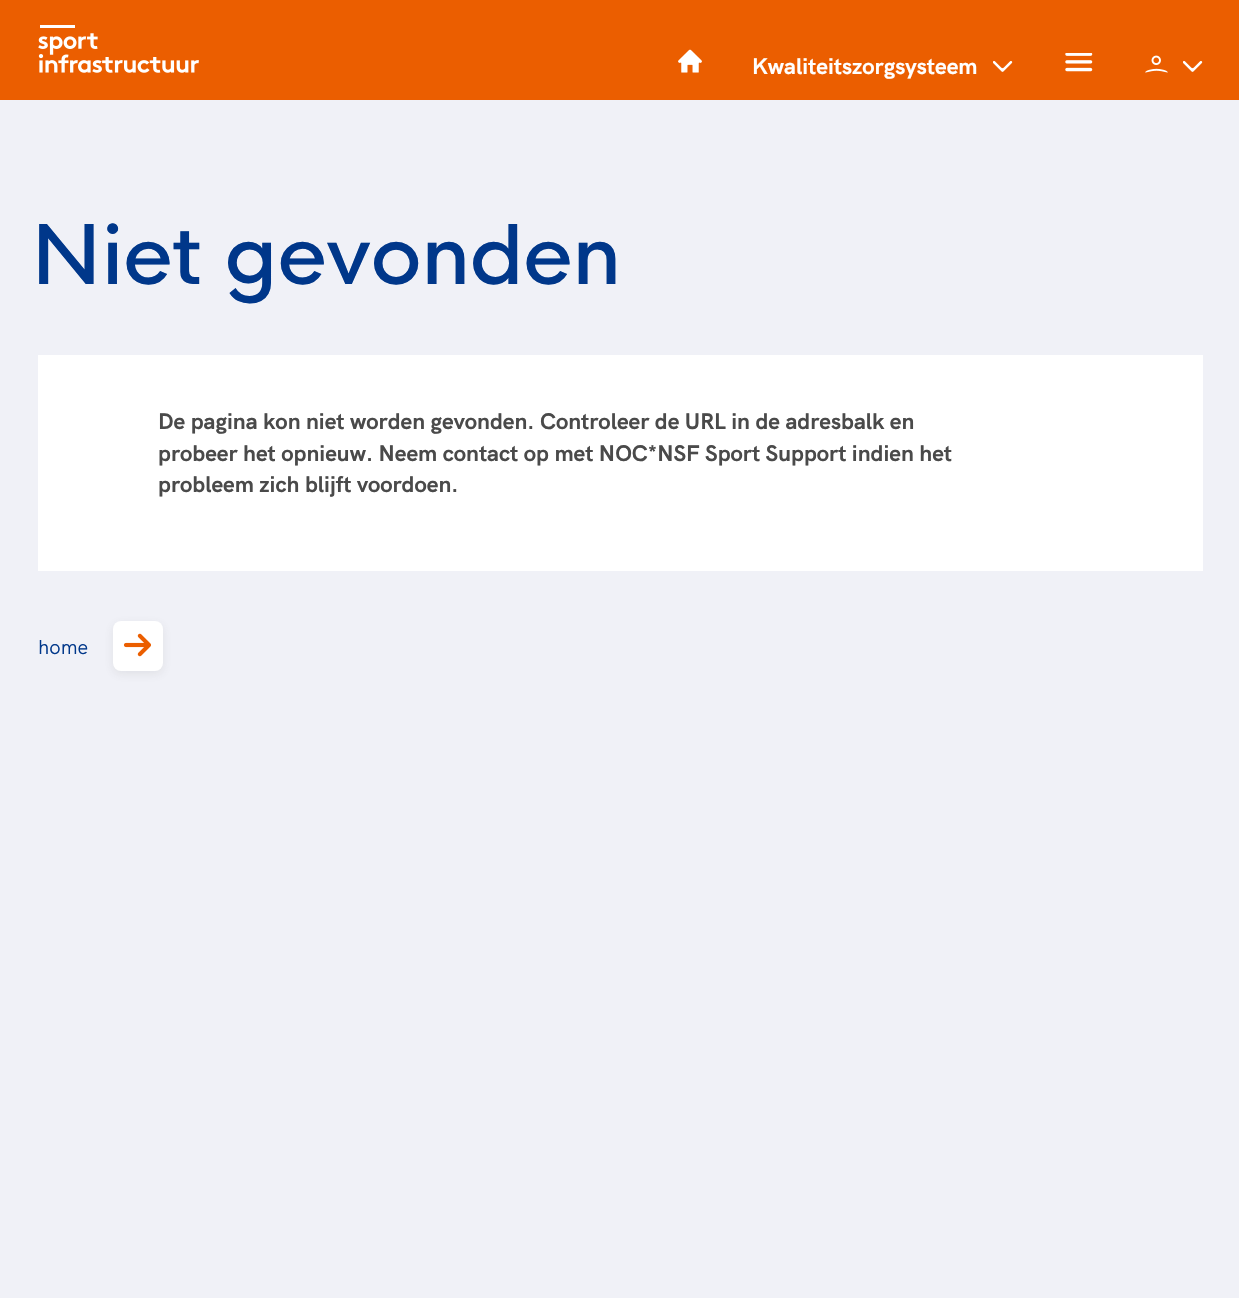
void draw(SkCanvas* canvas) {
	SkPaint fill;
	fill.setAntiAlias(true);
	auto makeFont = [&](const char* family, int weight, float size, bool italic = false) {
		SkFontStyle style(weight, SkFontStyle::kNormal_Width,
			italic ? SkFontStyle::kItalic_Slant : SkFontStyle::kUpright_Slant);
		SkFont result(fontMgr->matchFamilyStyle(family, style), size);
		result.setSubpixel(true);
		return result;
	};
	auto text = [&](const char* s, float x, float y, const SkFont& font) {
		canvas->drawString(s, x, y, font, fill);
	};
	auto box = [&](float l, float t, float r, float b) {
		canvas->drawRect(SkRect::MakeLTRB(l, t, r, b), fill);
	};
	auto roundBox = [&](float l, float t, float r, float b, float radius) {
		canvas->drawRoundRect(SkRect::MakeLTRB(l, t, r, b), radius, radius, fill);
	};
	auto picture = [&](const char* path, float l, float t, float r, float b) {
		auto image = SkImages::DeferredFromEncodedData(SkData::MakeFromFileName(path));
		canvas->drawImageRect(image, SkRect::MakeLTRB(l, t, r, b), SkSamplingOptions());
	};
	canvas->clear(0xFFF0F1F7);
	fill.setColor(0xFFEB5E00);
	box(0, 0, 1239, 100);
	picture("image0.png", 38, 25, 199, 73);
	picture("image1.png", 678, 49, 702, 73);
	picture("image2.png", 993, 61, 1013, 72);
	picture("image3.png", 1065, 53, 1093, 72);
	picture("image4.png", 1145, 55, 1168, 73);
	picture("image2.png", 1183, 61, 1203, 72);
	fill.setColor(0xFFFFFFFF);
	box(38, 355, 1203, 571);
	fill.setColor(0x1A4A4A4A);
	fill.setMaskFilter(SkMaskFilter::MakeBlur(kNormal_SkBlurStyle, 5));
	canvas->drawRoundRect(SkRect::MakeLTRB(113, 624, 163, 674), 8, 8, fill);
	fill.setMaskFilter(nullptr);
	fill.setColor(0xFFFFFFFF);
	roundBox(113, 621, 163, 671, 8);
	picture("image5.png", 123, 633, 151, 657);
	auto font1 = makeFont("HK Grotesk", 700, 22.5f);
	text("Kwaliteitszorgsysteem", 752, 74, font1);
	auto font2 = makeFont("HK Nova", 500, 80);
	fill.setColor(0xFF00378A);
	text("Niet gevonden", 31, 284, font2);
	fill.setColor(0xFF4A4A4A);
	text("De pagina kon niet worden gevonden. Controleer de URL in de adresbalk en", 158, 429, font1);
	text("probeer het opnieuw. Neem contact op met NOC*NSF Sport Support indien het", 158, 461, font1);
	text("probleem zich blijft voordoen.", 158, 492, font1);
	auto font3 = makeFont("HK Grotesk", 400, 20);
	fill.setColor(0xFF00378A);
	text("home", 38, 654, font3);
}
